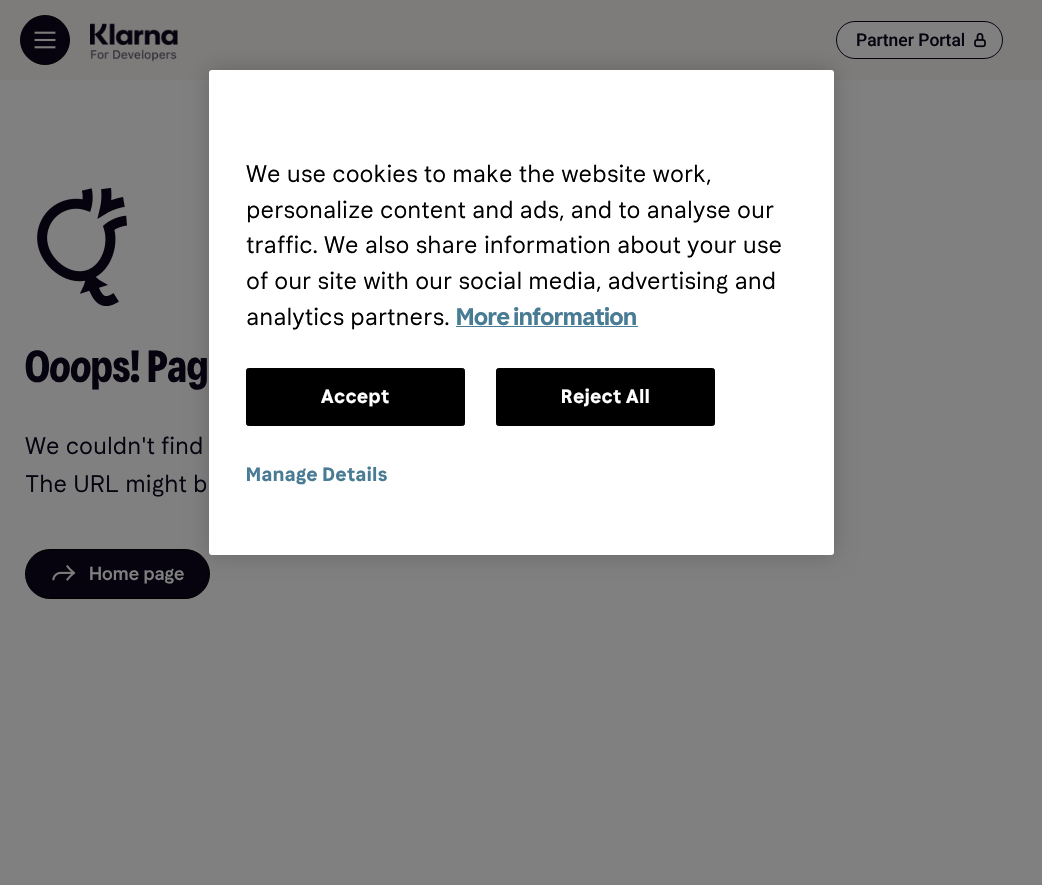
void draw(SkCanvas* canvas) {
	SkPaint fill;
	fill.setAntiAlias(true);
	auto makeFont = [&](const char* family, int weight, float size, bool italic = false) {
		SkFontStyle style(weight, SkFontStyle::kNormal_Width,
			italic ? SkFontStyle::kItalic_Slant : SkFontStyle::kUpright_Slant);
		SkFont result(fontMgr->matchFamilyStyle(family, style), size);
		result.setSubpixel(true);
		return result;
	};
	auto text = [&](const char* s, float x, float y, const SkFont& font) {
		canvas->drawString(s, x, y, font, fill);
	};
	auto spacedText = [&](const char* s, float x, float y, const SkFont& font, const SkPaint& ink, float letter, float word) {
		std::vector<SkGlyphID> glyphs(font.countText(s, strlen(s), SkTextEncoding::kUTF8));
		std::vector<float> xs(glyphs.size());
		font.textToGlyphs(s, strlen(s), SkTextEncoding::kUTF8, glyphs);
		font.getXPos(glyphs, xs, x);
		float extra = 0;
		for (size_t i = 0; i < glyphs.size(); i++) {
			xs[i] += extra;
			extra += letter + word * (glyphs[i] == font.unicharToGlyph(' '));
		}
		canvas->drawTextBlob(SkTextBlob::MakeFromPosHGlyphs(glyphs, xs, y, font), 0, 0, ink);
	};
	auto box = [&](float l, float t, float r, float b) {
		canvas->drawRect(SkRect::MakeLTRB(l, t, r, b), fill);
	};
	auto roundBox = [&](float l, float t, float r, float b, float radius) {
		canvas->drawRoundRect(SkRect::MakeLTRB(l, t, r, b), radius, radius, fill);
	};
	auto picture = [&](const char* path, float l, float t, float r, float b) {
		auto image = SkImages::DeferredFromEncodedData(SkData::MakeFromFileName(path));
		canvas->drawImageRect(image, SkRect::MakeLTRB(l, t, r, b), SkSamplingOptions());
	};
	canvas->clear(0xFF808080);
	fill.setColor(0xFF7D7C7B);
	box(0, 0, 1042, 80);
	fill.setColor(0xFF06030F);
	canvas->drawCircle(45, 40, 24.5f, fill);
	fill.setStyle(SkPaint::kStroke_Style);
	fill.setStrokeWidth(1);
	fill.setColor(0xFF000000);
	canvas->drawCircle(45, 40, 24.5f, fill);
	picture("image0.png", 34, 31, 56, 49);
	picture("image1.png", 90, 23, 178, 62);
	fill.setStyle(SkPaint::kFill_Style);
	fill.setColor(0xFF808080);
	canvas->drawRoundRect(SkRect::MakeLTRB(836.5f, 21.5f, 1002.5f, 58.5f), 18.5f, 18.5f, fill);
	fill.setStyle(SkPaint::kStroke_Style);
	fill.setColor(0xFF06030F);
	canvas->drawRoundRect(SkRect::MakeLTRB(836.5f, 21.5f, 1002.5f, 58.5f), 18.5f, 18.5f, fill);
	picture("image2.png", 974, 33, 986, 48);
	picture("image3.png", 37, 187, 127, 306);
	fill.setStyle(SkPaint::kFill_Style);
	canvas->drawRoundRect(SkRect::MakeLTRB(25.5f, 549.5f, 209.5f, 598.5f), 24.5f, 24.5f, fill);
	fill.setStyle(SkPaint::kStroke_Style);
	fill.setColor(0xFF000000);
	canvas->drawRoundRect(SkRect::MakeLTRB(25.5f, 549.5f, 209.5f, 598.5f), 24.5f, 24.5f, fill);
	picture("image4.png", 52, 565, 76, 581);
	fill.setStyle(SkPaint::kFill_Style);
	fill.setColor(0x33000000);
	fill.setMaskFilter(SkMaskFilter::MakeBlur(kNormal_SkBlurStyle, 11));
	canvas->drawRoundRect(SkRect::MakeLTRB(209, 70, 834, 555), 3, 3, fill);
	fill.setMaskFilter(nullptr);
	fill.setColor(0xFFFFFFFF);
	roundBox(209, 70, 834, 555, 3);
	fill.setColor(0xFF487B94);
	box(456, 326, 638, 327);
	fill.setColor(0xFF000000);
	canvas->drawRoundRect(SkRect::MakeLTRB(246.5f, 368.5f, 464.5f, 425.5f), 2, 2, fill);
	fill.setStyle(SkPaint::kStroke_Style);
	canvas->drawRoundRect(SkRect::MakeLTRB(246.5f, 368.5f, 464.5f, 425.5f), 2, 2, fill);
	fill.setStyle(SkPaint::kFill_Style);
	canvas->drawRoundRect(SkRect::MakeLTRB(496.5f, 368.5f, 714.5f, 425.5f), 2, 2, fill);
	fill.setStyle(SkPaint::kStroke_Style);
	canvas->drawRoundRect(SkRect::MakeLTRB(496.5f, 368.5f, 714.5f, 425.5f), 2, 2, fill);
	auto font1 = makeFont("Roboto", 500, 17.5f);
	fill.setStyle(SkPaint::kFill_Style);
	fill.setColor(0xFF06030F);
	text("Partner Portal", 856, 46, font1);
	auto font2 = makeFont("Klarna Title", 700, 45);
	spacedText("Ooops! Pag", 25, 382, font2, fill, -0.25f, 0);
	auto font3 = makeFont("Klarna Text", 400, 23.75f);
	text("We couldn't find", 25, 454, font3);
	text("The URL might b", 25, 492, font3);
	auto font4 = makeFont("Klarna Text", 500, 18.75f);
	fill.setColor(0xFF808080);
	text("Home page", 89, 580, font4);
	fill.setColor(0xFF000000);
	text("We use cookies to make the website work,", 246, 182, font3);
	text("personalize content and ads, and to analyse our", 246, 218, font3);
	text("traffic. We also share information about your use", 246, 253, font3);
	text("of our site with our social media, advertising and", 246, 289, font3);
	text("analytics partners.", 246, 325, font3);
	auto font5 = makeFont("Klarna Text", 700, 23.75f);
	fill.setColor(0xFF487B94);
	text("More information", 456, 325, font5);
	auto font6 = makeFont("Klarna Text", 700, 19.25f);
	fill.setColor(0xFFFFFFFF);
	spacedText("Accept", 321, 403, font6, fill, 1, 0);
	spacedText("Reject All", 561, 403, font6, fill, 1, 0);
	fill.setColor(0xFF487B94);
	spacedText("Manage Details", 246, 481, font6, fill, 1, 0);
}
